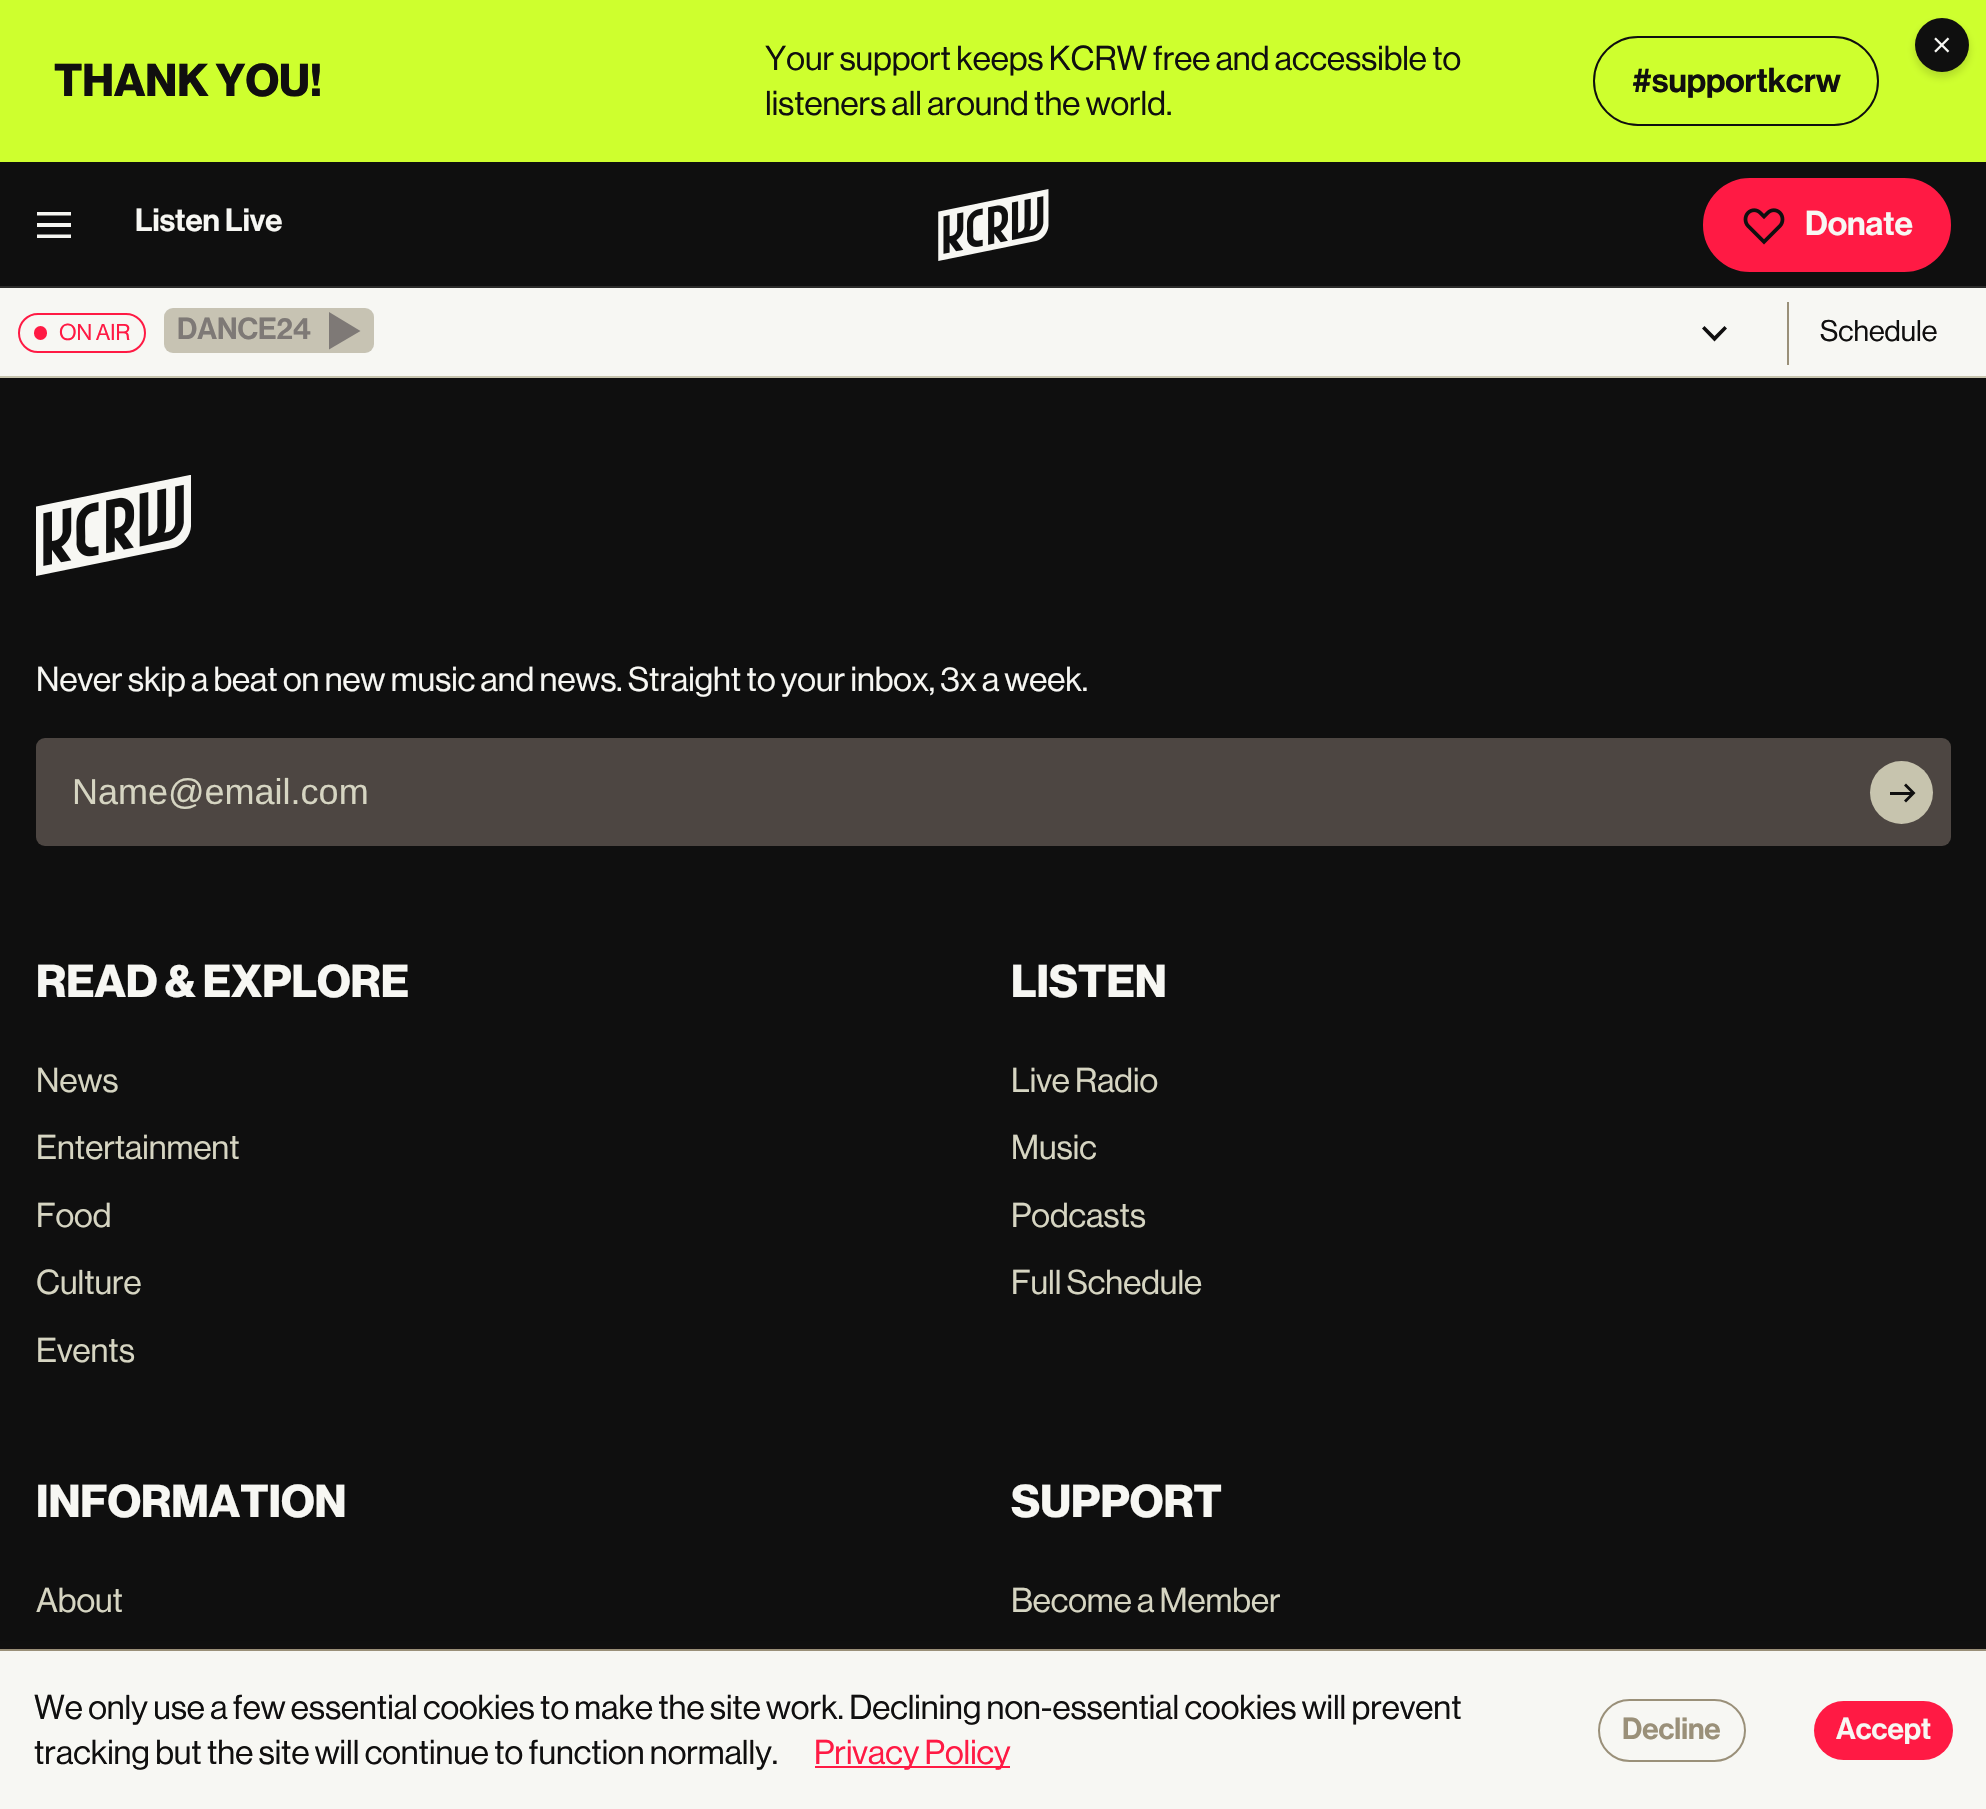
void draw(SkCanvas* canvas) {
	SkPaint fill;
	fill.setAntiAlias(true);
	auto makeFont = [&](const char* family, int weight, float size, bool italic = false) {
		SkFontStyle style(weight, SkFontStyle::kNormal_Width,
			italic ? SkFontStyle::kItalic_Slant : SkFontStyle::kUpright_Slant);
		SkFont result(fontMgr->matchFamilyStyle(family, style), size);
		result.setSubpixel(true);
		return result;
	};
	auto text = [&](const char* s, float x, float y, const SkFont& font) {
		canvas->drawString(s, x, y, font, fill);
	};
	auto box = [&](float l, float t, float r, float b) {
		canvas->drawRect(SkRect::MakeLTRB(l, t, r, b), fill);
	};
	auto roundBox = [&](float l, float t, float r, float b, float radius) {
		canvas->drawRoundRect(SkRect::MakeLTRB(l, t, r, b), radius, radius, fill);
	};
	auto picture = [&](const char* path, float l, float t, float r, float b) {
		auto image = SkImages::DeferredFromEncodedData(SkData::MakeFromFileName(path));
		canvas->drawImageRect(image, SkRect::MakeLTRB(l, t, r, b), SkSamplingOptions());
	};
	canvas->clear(0xFF0F0F0F);
	fill.setColor(0xFFCEFF2E);
	box(0, 0, 1986, 162);
	fill.setStyle(SkPaint::kStroke_Style);
	fill.setStrokeWidth(2);
	fill.setColor(0xFF0F0F0F);
	canvas->drawRoundRect(SkRect::MakeLTRB(1594, 37, 1878, 125), 44, 44, fill);
	fill.setStyle(SkPaint::kFill_Style);
	fill.setColor(0x290A0A0A);
	fill.setMaskFilter(SkMaskFilter::MakeBlur(kNormal_SkBlurStyle, 4.5f));
	canvas->drawRoundRect(SkRect::MakeLTRB(1915, 23, 1969, 77), 27, 27, fill);
	fill.setMaskFilter(nullptr);
	fill.setColor(0xFF0F0F0F);
	canvas->drawCircle(1942, 45, 27, fill);
	picture("image0.png", 1934, 37, 1950, 53);
	fill.setColor(0xFF2B2B2A);
	box(0, 286, 1986, 288);
	fill.setColor(0xFFF7F7F3);
	canvas->drawPath(SkPathBuilder(SkPathFillType::kEvenOdd).moveTo(37, 212).lineTo(71, 212).lineTo(71, 215.5f).lineTo(37, 215.5f).close().moveTo(37, 223).lineTo(71, 223).lineTo(71, 227).lineTo(37, 227).close().moveTo(71, 234.5f).lineTo(37, 234.5f).lineTo(37, 238).lineTo(71, 238).close().detach(), fill);
	picture("image1.png", 938, 189, 1049, 261);
	fill.setColor(0xFFFF1A44);
	canvas->drawRoundRect(SkRect::MakeLTRB(1704, 179, 1950, 271), 46, 46, fill);
	fill.setStyle(SkPaint::kStroke_Style);
	canvas->drawRoundRect(SkRect::MakeLTRB(1704, 179, 1950, 271), 46, 46, fill);
	picture("image2.png", 1743, 208, 1785, 245);
	fill.setStyle(SkPaint::kFill_Style);
	fill.setColor(0xFFF7F7F3);
	box(0, 288, 1986, 376);
	fill.setColor(0xFFC7C4AE);
	box(0, 376, 1986, 378);
	fill.setStyle(SkPaint::kStroke_Style);
	fill.setColor(0xFFFF1A44);
	canvas->drawRoundRect(SkRect::MakeLTRB(19, 314, 145, 352), 19, 19, fill);
	fill.setStyle(SkPaint::kFill_Style);
	roundBox(34, 326, 47, 340, 6.5f);
	fill.setColor(0xFFEFEFEF);
	roundBox(164, 308, 374, 353, 9);
	fill.setColor(0xB3B6B19A);
	roundBox(164, 308, 374, 353, 9);
	fill.setColor(0xFF7E7976);
	canvas->drawPath(SkPathBuilder().moveTo(329, 312).lineTo(329, 349.5f).lineTo(360.5f, 331).close().detach(), fill);
	fill.setColor(0xFF100F0F);
	canvas->drawPath(SkPathBuilder(SkPathFillType::kEvenOdd).moveTo(1702, 328.5f).lineTo(1704.5f, 326).lineTo(1714.5f, 336).lineTo(1724.5f, 326).lineTo(1727, 328.5f).lineTo(1714.5f, 341.5f).close().detach(), fill);
	fill.setColor(0xFF9A9079);
	box(1787, 302, 1789, 365);
	picture("image3.png", 36, 475, 191, 576);
	fill.setColor(0xFF4D4642);
	roundBox(36, 738, 1951, 846, 9);
	fill.setColor(0xFFC7C4AE);
	canvas->drawCircle(1901.5f, 792.5f, 31.5f, fill);
	fill.setColor(0xFF0F0F0F);
	canvas->drawPath(SkPathBuilder(SkPathFillType::kEvenOdd).moveTo(1911.5f, 793).lineTo(1904, 785.5f).lineTo(1906, 783.5f).lineTo(1915.5f, 793).lineTo(1906, 802.5f).lineTo(1904, 800.5f).close().detach(), fill);
	box(1890, 792, 1912, 795);
	fill.setColor(0x40670511);
	fill.setMaskFilter(SkMaskFilter::MakeBlur(kNormal_SkBlurStyle, 4.5f));
	canvas->drawRect(SkRect::MakeLTRB(0, 1654, 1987, 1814), fill);
	fill.setMaskFilter(nullptr);
	fill.setColor(0xFFF7F7F3);
	box(0, 1651, 1986, 1809);
	fill.setColor(0xFF9A9079);
	box(0, 1649, 1986, 1651);
	fill.setColor(0xFFFF1A44);
	box(815, 1766, 1010, 1768);
	fill.setStyle(SkPaint::kStroke_Style);
	fill.setColor(0xFF9A9079);
	canvas->drawRoundRect(SkRect::MakeLTRB(1599, 1700, 1745, 1761), 30.5f, 30.5f, fill);
	fill.setStyle(SkPaint::kFill_Style);
	fill.setColor(0xFFFF1A44);
	roundBox(1814, 1701, 1953, 1760, 29.5f);
	auto font1 = makeFont("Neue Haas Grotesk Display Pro", 700, 45);
	fill.setColor(0xFF100F0F);
	text("THANK YOU!", 54, 96, font1);
	auto font2 = makeFont("Neue Haas Grotesk Display Pro", 500, 33.75f);
	text("Your support keeps KCRW free and accessible to", 765, 70, font2);
	text("listeners all around the world.", 765, 115, font2);
	auto font3 = makeFont("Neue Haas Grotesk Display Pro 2", 500, 33.75f);
	text("#supportkcrw", 1632, 92, font3);
	auto font4 = makeFont("Neue Haas Grotesk Display Pro 2", 500, 31.5f);
	fill.setColor(0xFFF7F7F3);
	text("Listen Live", 135, 231, font4);
	text("Donate", 1805, 235, font3);
	auto font5 = makeFont("Neue Haas Grotesk Display Pro", 500, 22.5f);
	fill.setColor(0xFFFF1A44);
	text("ON AIR", 59, 340, font5);
	auto font6 = makeFont("Neue Haas Grotesk Display Pro 2", 500, 30);
	fill.setColor(0xFF7E7976);
	text("DANCE24", 177, 339, font6);
	auto font7 = makeFont("Neue Haas Grotesk Display Pro", 500, 29.25f);
	fill.setColor(0xFF100F0F);
	text("Schedule", 1820, 341, font7);
	fill.setColor(0xFFF7F7F3);
	text("Never skip a beat on new music and news. Straight to your inbox, 3x a week.", 36, 691, font2);
	auto font8 = makeFont("Liberation Sans", 400, 36);
	fill.setColor(0xFFD6D5C2);
	text("Name@email.com", 72, 804, font8);
	fill.setColor(0xFFF7F7F3);
	text("READ & EXPLORE", 36, 997, font1);
	fill.setColor(0xFFD6D5C2);
	text("News", 36, 1092, font2);
	text("Entertainment", 36, 1159, font2);
	text("Food", 36, 1227, font2);
	text("Culture", 36, 1294, font2);
	text("Events", 36, 1362, font2);
	fill.setColor(0xFFF7F7F3);
	text("LISTEN", 1011, 997, font1);
	fill.setColor(0xFFD6D5C2);
	text("Live Radio", 1011, 1092, font2);
	text("Music", 1011, 1159, font2);
	text("Podcasts", 1011, 1227, font2);
	text("Full Schedule", 1011, 1294, font2);
	fill.setColor(0xFFF7F7F3);
	text("INFORMATION", 36, 1517, font1);
	fill.setColor(0xFFD6D5C2);
	text("About", 36, 1612, font2);
	fill.setColor(0xFFF7F7F3);
	text("SUPPORT", 1011, 1517, font1);
	fill.setColor(0xFFD6D5C2);
	text("Become a Member", 1011, 1612, font2);
	fill.setColor(0xFF100F0F);
	text("We only use a few essential cookies to make the site work. Declining non-essential cookies will prevent", 34, 1719, font2);
	text("tracking but the site will continue to function normally.", 34, 1764, font2);
	fill.setColor(0xFFFF1A44);
	text("Privacy Policy", 814, 1764, font2);
	fill.setColor(0xFF9A9079);
	text("Decline", 1622, 1739, font6);
	fill.setColor(0xFFF7F7F3);
	text("Accept", 1836, 1739, font6);
}
